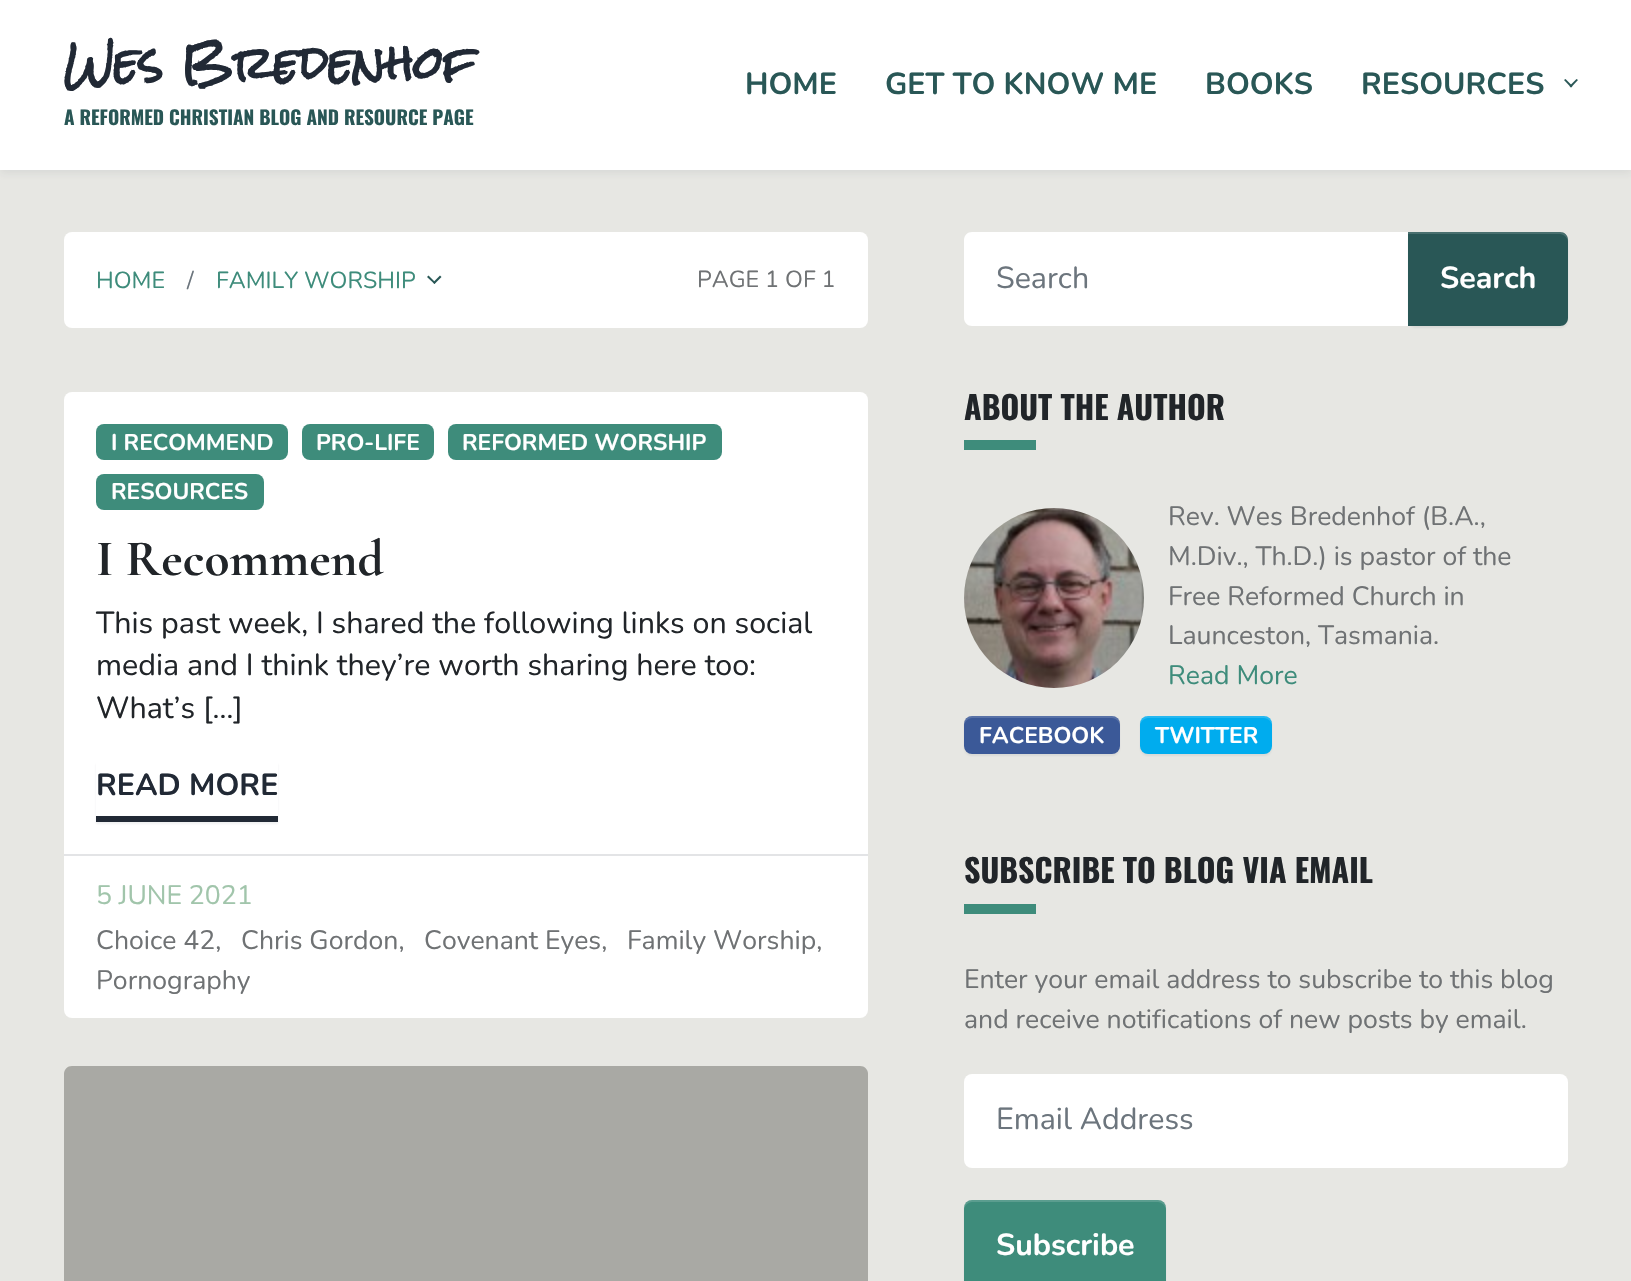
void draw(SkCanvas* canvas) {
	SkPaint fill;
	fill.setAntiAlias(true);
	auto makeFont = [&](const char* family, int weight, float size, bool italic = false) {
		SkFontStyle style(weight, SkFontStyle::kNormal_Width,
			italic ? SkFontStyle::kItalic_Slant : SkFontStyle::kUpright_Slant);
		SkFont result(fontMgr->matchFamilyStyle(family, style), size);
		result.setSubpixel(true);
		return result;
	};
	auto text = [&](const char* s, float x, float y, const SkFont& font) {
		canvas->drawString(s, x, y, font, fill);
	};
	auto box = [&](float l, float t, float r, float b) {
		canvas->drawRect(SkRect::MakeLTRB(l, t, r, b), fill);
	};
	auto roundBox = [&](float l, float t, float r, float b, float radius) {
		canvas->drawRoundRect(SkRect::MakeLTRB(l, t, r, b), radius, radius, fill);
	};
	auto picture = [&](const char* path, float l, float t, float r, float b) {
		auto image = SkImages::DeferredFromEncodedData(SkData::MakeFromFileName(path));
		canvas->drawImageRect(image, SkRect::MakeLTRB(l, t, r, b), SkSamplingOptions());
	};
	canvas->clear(0xFFE7E7E3);
	fill.setColor(0x12212935);
	fill.setMaskFilter(SkMaskFilter::MakeBlur(kNormal_SkBlurStyle, 4));
	canvas->drawRect(SkRect::MakeLTRB(0, 4, 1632, 174), fill);
	fill.setMaskFilter(nullptr);
	fill.setColor(0xFFFFFFFF);
	box(0, 0, 1631, 170);
	fill.setColor(0xFF295756);
	canvas->drawPath(SkPathBuilder().moveTo(1571, 87.5f).lineTo(1564, 80).lineTo(1565.5f, 79).lineTo(1572.5f, 86).close().detach(), fill);
	canvas->drawPath(SkPathBuilder().moveTo(1571, 87.5f).lineTo(1569.5f, 86).lineTo(1576.5f, 79).lineTo(1578, 80).close().detach(), fill);
	fill.setColor(0xFFFFFFFF);
	roundBox(64, 232, 868, 328, 8);
	fill.setColor(0xFF295756);
	canvas->drawPath(SkPathBuilder().moveTo(434.5f, 284).lineTo(427, 277).lineTo(428.5f, 275.5f).lineTo(435.5f, 282.5f).close().detach(), fill);
	canvas->drawPath(SkPathBuilder().moveTo(434.5f, 284).lineTo(433, 282.5f).lineTo(440, 275.5f).lineTo(441.5f, 277).close().detach(), fill);
	fill.setColor(0xFFFFFFFF);
	roundBox(64, 392, 868, 1018, 8);
	fill.setColor(0xFF3E8C7B);
	roundBox(96, 424, 288, 460, 8);
	roundBox(302, 424, 434, 460, 8);
	roundBox(448, 424, 722, 460, 8);
	roundBox(96, 474, 264, 510, 8);
	canvas->save();
	canvas->clipPath(SkPathBuilder(SkPathFillType::kEvenOdd).moveTo(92, 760).lineTo(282, 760).lineTo(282, 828).lineTo(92, 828).close().moveTo(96, 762).lineTo(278, 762).lineTo(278, 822).lineTo(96, 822).close().detach(), true);
	fill.setColor(0x12212935);
	fill.setMaskFilter(SkMaskFilter::MakeBlur(kNormal_SkBlurStyle, 1));
	canvas->drawRect(SkRect::MakeLTRB(96, 764, 278, 824), fill);
	fill.setMaskFilter(nullptr);
	canvas->restore();
	fill.setColor(0xFF212935);
	box(96, 816, 278, 822);
	fill.setColor(0xFFE3E4E6);
	box(64, 854, 868, 856);
	fill.setColor(0xFFD4D4CD);
	canvas->drawPath(SkPathBuilder().moveTo(72, 1066).lineTo(860, 1066).cubicTo(864.5f, 1066, 868, 1069.5f, 868, 1074).lineTo(868, 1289).lineTo(64, 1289).lineTo(64, 1074).cubicTo(64, 1069.5f, 67.5f, 1066, 72, 1066).close().detach(), fill);
	fill.setColor(0x33000000);
	canvas->drawPath(SkPathBuilder().moveTo(72, 1066).lineTo(860, 1066).cubicTo(864.5f, 1066, 868, 1069.5f, 868, 1074).lineTo(868, 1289).lineTo(64, 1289).lineTo(64, 1074).cubicTo(64, 1069.5f, 67.5f, 1066, 72, 1066).close().detach(), fill);
	fill.setColor(0xFFFFFFFF);
	canvas->drawPath(SkPathBuilder().moveTo(972, 232).lineTo(1408, 232).lineTo(1408, 326).lineTo(972, 326).cubicTo(967.5f, 326, 964, 322.5f, 964, 318).lineTo(964, 240).cubicTo(964, 235.5f, 967.5f, 232, 972, 232).close().detach(), fill);
	fill.setColor(0x12212935);
	fill.setMaskFilter(SkMaskFilter::MakeBlur(kNormal_SkBlurStyle, 1));
	canvas->drawRoundRect(SkRect::MakeLTRB(1408, 234, 1568, 328), 8, 8, fill);
	fill.setMaskFilter(nullptr);
	fill.setColor(0xFF295756);
	canvas->drawPath(SkPathBuilder().moveTo(1408, 232).lineTo(1560, 232).cubicTo(1564.5f, 232, 1568, 235.5f, 1568, 240).lineTo(1568, 318).cubicTo(1568, 322.5f, 1564.5f, 326, 1560, 326).lineTo(1408, 326).close().detach(), fill);
	fill.setColor(0x26FFFFFF);
	canvas->drawPath(SkPathBuilder().moveTo(1408, 234).lineTo(1560, 234).cubicTo(1564, 234, 1568, 238, 1568, 242).lineTo(1568, 240).cubicTo(1568, 236, 1564, 232, 1560, 232).lineTo(1408, 232).close().detach(), fill);
	fill.setColor(0xFF3E8C7B);
	box(964, 440, 1036, 450);
	picture("image0.png", 964, 508, 1144, 688);
	fill.setColor(0x12212935);
	fill.setMaskFilter(SkMaskFilter::MakeBlur(kNormal_SkBlurStyle, 1));
	canvas->drawRoundRect(SkRect::MakeLTRB(964, 718, 1120, 756), 8, 8, fill);
	fill.setMaskFilter(nullptr);
	fill.setColor(0xFF3B5998);
	roundBox(964, 716, 1120, 754, 8);
	fill.setColor(0x26FFFFFF);
	canvas->drawPath(SkPathBuilder().moveTo(972, 718).lineTo(1112, 718).cubicTo(1116, 718, 1120, 722, 1120, 726).lineTo(1120, 724).cubicTo(1120, 720, 1116, 716, 1112, 716).lineTo(972, 716).cubicTo(968, 716, 964, 720, 964, 724).lineTo(964, 726).cubicTo(964, 722, 968, 718, 972, 718).close().detach(), fill);
	fill.setColor(0x12212935);
	fill.setMaskFilter(SkMaskFilter::MakeBlur(kNormal_SkBlurStyle, 1));
	canvas->drawRoundRect(SkRect::MakeLTRB(1140, 718, 1272, 756), 8, 8, fill);
	fill.setMaskFilter(nullptr);
	fill.setColor(0xFF00ACEE);
	roundBox(1140, 716, 1272, 754, 8);
	fill.setColor(0x26FFFFFF);
	canvas->drawPath(SkPathBuilder().moveTo(1148, 718).lineTo(1264, 718).cubicTo(1268, 718, 1272, 722, 1272, 726).cubicTo(1272, 711, 1255, 716, 1245, 716).lineTo(1167, 716).cubicTo(1157, 716, 1140, 711, 1140, 726).cubicTo(1140, 722, 1144, 718, 1148, 718).close().detach(), fill);
	fill.setColor(0xFF3E8C7B);
	box(964, 904, 1036, 914);
	fill.setColor(0xFFFFFFFF);
	roundBox(964, 1074, 1568, 1168, 8);
	fill.setColor(0x12212935);
	fill.setMaskFilter(SkMaskFilter::MakeBlur(kNormal_SkBlurStyle, 1));
	canvas->drawRoundRect(SkRect::MakeLTRB(964, 1202, 1166, 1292), 8, 8, fill);
	fill.setMaskFilter(nullptr);
	fill.setColor(0xFF3E8C7B);
	roundBox(964, 1200, 1166, 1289, 8);
	fill.setColor(0x26FFFFFF);
	canvas->drawPath(SkPathBuilder().moveTo(972, 1202).lineTo(1158, 1202).cubicTo(1162, 1202, 1166, 1206, 1166, 1210).lineTo(1166, 1208).cubicTo(1166, 1204, 1162, 1200, 1158, 1200).lineTo(972, 1200).cubicTo(968, 1200, 964, 1204, 964, 1208).lineTo(964, 1210).cubicTo(964, 1206, 968, 1202, 972, 1202).close().detach(), fill);
	auto font1 = makeFont("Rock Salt", 700, 42.9f);
	fill.setColor(0xFF212935);
	text("Wes Bredenhof", 64, 80, font1);
	auto font2 = makeFont("Oswald", 700, 19.2f);
	fill.setColor(0xFF295756);
	text("A REFORMED CHRISTIAN BLOG AND RESOURCE PAGE", 64, 125, font2);
	auto font3 = makeFont("Nunito", 700, 30.4f);
	text("HOME", 745, 94, font3);
	text("GET TO KNOW ME", 885, 94, font3);
	text("BOOKS", 1205, 94, font3);
	text("RESOURCES", 1361, 94, font3);
	auto font4 = makeFont("Nunito", 400, 23.25f);
	fill.setColor(0xFF3E8C7B);
	text("HOME", 96, 288, font4);
	fill.setColor(0xFF6C757D);
	text("/", 187, 288, font4);
	fill.setColor(0xFF3E8C7B);
	text("FAMILY WORSHIP", 216, 288, font4);
	fill.setColor(0xFF6F7274);
	text("PAGE 1 OF 1", 697, 287, font4);
	auto font5 = makeFont("Nunito", 700, 22.75f);
	fill.setColor(0xFFFFFFFF);
	text("I RECOMMEND", 111, 450, font5);
	text("PRO-LIFE", 316, 450, font5);
	text("REFORMED WORSHIP", 462, 450, font5);
	text("RESOURCES", 111, 499, font5);
	auto font6 = makeFont("Cormorant Garamond", 300, 51.25f);
	fill.setColor(0xFF212529);
	text("I Recommend", 96, 575, font6);
	auto font7 = makeFont("Nunito", 400, 30.4f);
	text("This past week, I shared the following links on social", 96, 633, font7);
	text("media and I think they’re worth sharing here too:", 96, 675, font7);
	text("What’s […]", 96, 718, font7);
	fill.setColor(0xFF212935);
	text("READ MORE", 96, 795, font3);
	auto font8 = makeFont("Nunito", 400, 26.6f);
	fill.setColor(0xFFA1C5AB);
	text("5 JUNE 2021", 96, 904, font8);
	fill.setColor(0xFF6F7274);
	text("Choice 42,", 96, 949, font8);
	text("Chris Gordon,", 241, 949, font8);
	text("Covenant Eyes,", 424, 949, font8);
	text("Family Worship,", 627, 949, font8);
	text("Pornography", 96, 989, font8);
	fill.setColor(0xFF6C757D);
	text("Search", 996, 288, font7);
	fill.setColor(0xFFFFFFFF);
	text("Search", 1440, 288, font3);
	auto font9 = makeFont("Oswald", 700, 32);
	fill.setColor(0xFF212529);
	text("ABOUT THE AUTHOR", 964, 420, font9);
	fill.setColor(0xFF6F7274);
	text("Rev. Wes Bredenhof (B.A.,", 1168, 525, font8);
	text("M.Div., Th.D.) is pastor of the", 1168, 565, font8);
	text("Free Reformed Church in", 1168, 605, font8);
	text("Launceston, Tasmania.", 1168, 644, font8);
	fill.setColor(0xFF3E8C7B);
	text("Read More", 1168, 684, font8);
	fill.setColor(0xFFFFFFFF);
	text("FACEBOOK", 979, 743, font5);
	text("TWITTER", 1155, 743, font5);
	fill.setColor(0xFF212529);
	text("SUBSCRIBE TO BLOG VIA EMAIL", 964, 883, font9);
	fill.setColor(0xFF6F7274);
	text("Enter your email address to subscribe to this blog", 964, 988, font8);
	text("and receive notifications of new posts by email.", 964, 1028, font8);
	fill.setColor(0xFF6C757D);
	text("Email Address", 996, 1129, font7);
	fill.setColor(0xFFFFFFFF);
	text("Subscribe", 996, 1255, font3);
}
